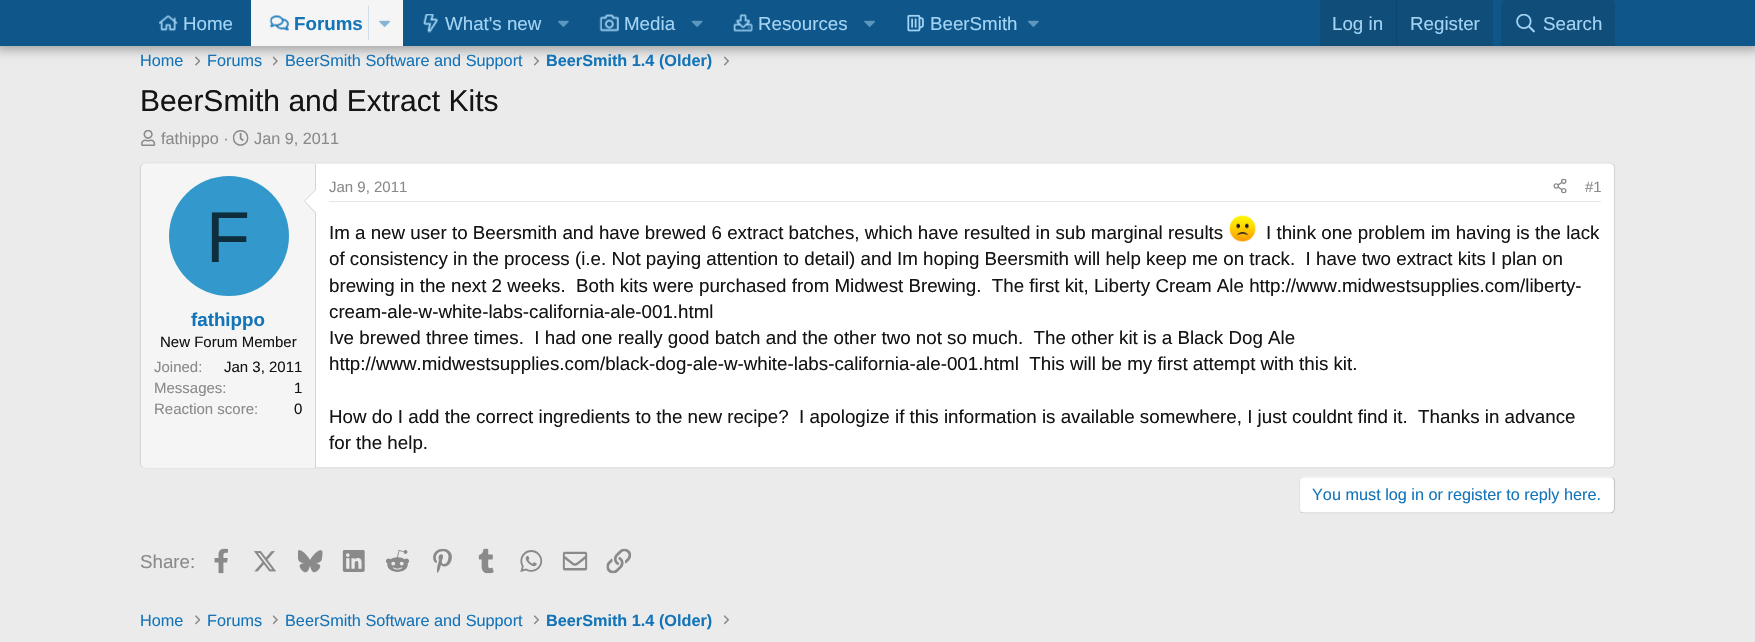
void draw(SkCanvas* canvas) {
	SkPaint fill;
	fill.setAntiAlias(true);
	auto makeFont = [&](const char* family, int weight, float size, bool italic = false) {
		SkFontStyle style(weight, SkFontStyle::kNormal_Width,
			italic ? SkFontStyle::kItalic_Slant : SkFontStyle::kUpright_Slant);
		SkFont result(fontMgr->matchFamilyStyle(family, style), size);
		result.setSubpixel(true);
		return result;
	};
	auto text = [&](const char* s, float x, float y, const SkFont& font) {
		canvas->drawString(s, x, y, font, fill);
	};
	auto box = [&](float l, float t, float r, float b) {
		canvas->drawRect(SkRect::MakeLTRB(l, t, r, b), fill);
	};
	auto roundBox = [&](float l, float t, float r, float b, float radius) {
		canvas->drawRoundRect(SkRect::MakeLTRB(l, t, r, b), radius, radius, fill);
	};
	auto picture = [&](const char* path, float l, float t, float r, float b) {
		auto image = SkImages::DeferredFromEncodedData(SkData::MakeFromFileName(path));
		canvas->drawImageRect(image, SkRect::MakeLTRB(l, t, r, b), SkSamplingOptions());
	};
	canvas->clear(0xFFEBEBEB);
	picture("image11.png", 195, 56, 200, 66);
	picture("image12.png", 273, 56, 278, 66);
	picture("image13.png", 534, 56, 539, 66);
	picture("image13.png", 724, 56, 729, 66);
	fill.setColor(0x4D000000);
	fill.setMaskFilter(SkMaskFilter::MakeBlur(kNormal_SkBlurStyle, 5));
	canvas->drawRect(SkRect::MakeLTRB(-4, -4, 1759, 50), fill);
	fill.setMaskFilter(nullptr);
	fill.setColor(0xFF0F578A);
	box(0, 0, 1755, 46);
	picture("image0.png", 159, 15, 178, 31);
	fill.setColor(0xFFF5F5F5);
	box(251, 0, 403, 46);
	picture("image1.png", 269, 15, 289, 31);
	fill.setColor(0xFFCEDFEB);
	box(368, 6, 369, 40);
	picture("image2.png", 379, 20, 390, 27);
	picture("image3.png", 423, 14, 438, 33);
	picture("image4.png", 558, 20, 569, 27);
	picture("image5.png", 599, 14, 619, 32);
	picture("image6.png", 691, 20, 703, 27);
	picture("image7.png", 733, 14, 753, 32);
	picture("image8.png", 864, 20, 875, 27);
	picture("image9.png", 907, 14, 924, 32);
	picture("image4.png", 1028, 20, 1039, 27);
	fill.setColor(0xFF104D78);
	box(1320, 0, 1493, 46);
	fill.setColor(0xFF114469);
	box(1396, 0, 1397, 46);
	fill.setColor(0xFF104D78);
	canvas->drawPath(SkPathBuilder().moveTo(1506, 0).lineTo(1610, 0).cubicTo(1613, 0, 1615, 2, 1615, 5).lineTo(1615, 46).lineTo(1501, 46).lineTo(1501, 5).cubicTo(1501, 2, 1503, 0, 1506, 0).close().detach(), fill);
	picture("image10.png", 1516, 14, 1535, 33);
	picture("image14.png", 141, 130, 156, 146);
	picture("image15.png", 232, 130, 249, 146);
	fill.setColor(0xFFFFFFFF);
	roundBox(140, 163, 1615, 469, 5);
	fill.setStyle(SkPaint::kStroke_Style);
	fill.setStrokeWidth(1.2f);
	fill.setColor(0xFFE0E0E0);
	canvas->drawPath(SkPathBuilder().moveTo(142, 164.5f).lineTo(145, 163).lineTo(1610, 163).lineTo(1613, 164.5f).detach(), fill);
	fill.setColor(0xFFD6D6D6);
	canvas->drawPath(SkPathBuilder().moveTo(1613, 164.5f).cubicTo(1614, 165, 1614.5f, 166.5f, 1614.5f, 167.5f).lineTo(1614.5f, 464).cubicTo(1614.5f, 465, 1614, 466, 1613, 467).detach(), fill);
	fill.setColor(0xFFCCCCCC);
	canvas->drawPath(SkPathBuilder().moveTo(1613, 467).lineTo(1610, 468).lineTo(145, 468).lineTo(142, 467).detach(), fill);
	fill.setColor(0xFFD6D6D6);
	canvas->drawPath(SkPathBuilder().moveTo(142, 467).cubicTo(141, 466, 140.5f, 465, 140.5f, 464).lineTo(140.5f, 167.5f).cubicTo(140.5f, 166.5f, 141, 165, 142, 164.5f).detach(), fill);
	fill.setStyle(SkPaint::kFill_Style);
	fill.setColor(0xFFF5F5F5);
	canvas->drawPath(SkPathBuilder().moveTo(145, 164).lineTo(316, 164).lineTo(316, 468).lineTo(145, 468).cubicTo(143, 468, 141, 466, 141, 464).lineTo(141, 168).cubicTo(141, 166, 143, 164, 145, 164).close().detach(), fill);
	fill.setColor(0xFFD6D6D6);
	box(315, 164, 316, 468);
	canvas->drawPath(SkPathBuilder().moveTo(316, 189).lineTo(316, 214).lineTo(304, 201).close().detach(), fill);
	fill.setColor(0xFFFFFFFF);
	canvas->drawPath(SkPathBuilder().moveTo(316, 190).lineTo(316, 212.5f).lineTo(305, 201).close().detach(), fill);
	fill.setColor(0xFF3399CC);
	canvas->drawCircle(229, 236, 60, fill);
	fill.setColor(0xFFE5E5E5);
	box(329, 201, 1601, 202);
	picture("image16.png", 1553, 178, 1567, 194);
	picture("image17.png", 1229, 215, 1256, 242);
	fill.setColor(0xFFFFFFFF);
	roundBox(1299, 476, 1615, 514, 5);
	fill.setStyle(SkPaint::kStroke_Style);
	fill.setColor(0xFFC9C9C9);
	canvas->drawPath(SkPathBuilder().moveTo(1613, 478).cubicTo(1614, 479, 1614.5f, 480, 1614.5f, 481).lineTo(1614.5f, 509).cubicTo(1614.5f, 510, 1614, 511, 1613, 512).cubicTo(1612.5f, 512.5f, 1611, 513, 1610, 513).lineTo(1304, 513).cubicTo(1302.5f, 513, 1301.5f, 512.5f, 1300.5f, 512).detach(), fill);
	fill.setColor(0xFFE3E3E3);
	canvas->drawPath(SkPathBuilder().moveTo(1300.5f, 512).cubicTo(1300, 511, 1299.5f, 510, 1299.5f, 509).lineTo(1299.5f, 481).cubicTo(1299.5f, 480, 1300, 479, 1300.5f, 478).cubicTo(1301.5f, 477.5f, 1302.5f, 477, 1304, 477).lineTo(1610, 477).cubicTo(1611, 477, 1612.5f, 477.5f, 1613, 478).detach(), fill);
	picture("image18.png", 214, 548, 228, 574);
	picture("image19.png", 254, 551, 277, 572);
	picture("image20.png", 298, 550, 323, 573);
	picture("image21.png", 342, 550, 365, 572);
	picture("image22.png", 386, 550, 409, 572);
	picture("image23.png", 433, 548, 452, 573);
	picture("image24.png", 478, 548, 494, 574);
	picture("image25.png", 520, 550, 543, 572);
	picture("image26.png", 562, 551, 588, 571);
	picture("image27.png", 606, 548, 631, 574);
	picture("image28.png", 195, 615, 200, 625);
	picture("image29.png", 273, 615, 278, 625);
	picture("image30.png", 534, 615, 539, 625);
	picture("image30.png", 724, 615, 729, 625);
	auto font1 = makeFont("Liberation Sans", 400, 18.75f);
	fill.setStyle(SkPaint::kFill_Style);
	fill.setColor(0xFFA3D4F5);
	text("Home", 183, 30, font1);
	auto font2 = makeFont("Liberation Sans", 700, 18.75f);
	fill.setColor(0xFF1474B8);
	text("Forums", 294, 30, font2);
	fill.setColor(0xFFA3D4F5);
	text("What's new", 445, 30, font1);
	text("Media", 624, 30, font1);
	text("Resources", 758, 30, font1);
	text("BeerSmith", 930, 30, font1);
	text("Log in", 1332, 30, font1);
	text("Register", 1410, 30, font1);
	text("Search", 1543, 30, font1);
	auto font3 = makeFont("Liberation Sans", 400, 16.25f);
	fill.setColor(0xFF1474B8);
	text("Home", 140, 66, font3);
	text("Forums", 207, 66, font3);
	text("BeerSmith Software and Support", 285, 66, font3);
	auto font4 = makeFont("Liberation Sans", 700, 16.25f);
	text("BeerSmith 1.4 (Older)", 546, 66, font4);
	auto font5 = makeFont("Liberation Sans", 400, 30);
	fill.setColor(0xFF141414);
	text("BeerSmith and Extract Kits", 140, 111, font5);
	fill.setColor(0xFF8A8A8A);
	text("fathippo ·", 161, 144, font3);
	text("Jan 9, 2011", 254, 144, font3);
	auto font6 = makeFont("Liberation Sans", 400, 72);
	fill.setColor(0xFF0F2E3D);
	text("F", 206, 262, font6);
	fill.setColor(0xFF1474B8);
	text("fathippo", 191, 326, font2);
	auto font7 = makeFont("Liberation Sans", 400, 15);
	fill.setColor(0xFF141414);
	text("New Forum Member", 160, 347, font7);
	fill.setColor(0xFF8A8A8A);
	text("Joined:", 154, 372, font7);
	fill.setColor(0xFF141414);
	text("Jan 3, 2011", 224, 372, font7);
	fill.setColor(0xFF8A8A8A);
	text("Messages:", 154, 393, font7);
	fill.setColor(0xFF141414);
	text("1", 294, 393, font7);
	fill.setColor(0xFF8A8A8A);
	text("Reaction score:", 154, 414, font7);
	fill.setColor(0xFF141414);
	text("0", 294, 414, font7);
	fill.setColor(0xFF8A8A8A);
	text("Jan 9, 2011", 329, 192, font7);
	text("#1", 1585, 192, font7);
	fill.setColor(0xFF141414);
	text("Im a new user to Beersmith and have brewed 6 extract batches, which have resulted in sub marginal results", 329, 239, font1);
	text("I think one problem im having is the lack", 1266, 239, font1);
	text("of consistency in the process (i.e. Not paying attention to detail) and Im hoping Beersmith will help keep me on track.  I have two extract kits I plan on", 329, 265, font1);
	text("brewing in the next 2 weeks.  Both kits were purchased from Midwest Brewing.  The first kit, Liberty Cream Ale http://www.midwestsupplies.com/liberty-", 329, 292, font1);
	text("cream-ale-w-white-labs-california-ale-001.html", 329, 318, font1);
	text("Ive brewed three times.  I had one really good batch and the other two not so much.  The other kit is a Black Dog Ale", 329, 344, font1);
	text("http://www.midwestsupplies.com/black-dog-ale-w-white-labs-california-ale-001.html  This will be my first attempt with this kit.", 329, 370, font1);
	text("How do I add the correct ingredients to the new recipe?  I apologize if this information is available somewhere, I just couldnt find it.  Thanks in advance", 329, 423, font1);
	text("for the help.", 329, 449, font1);
	fill.setColor(0xFF1474B8);
	text("You must log in or register to reply here.", 1312, 500, font3);
	fill.setColor(0xFF8A8A8A);
	text("Share:", 140, 568, font1);
	fill.setColor(0xFF1474B8);
	text("Home", 140, 626, font3);
	text("Forums", 207, 626, font3);
	text("BeerSmith Software and Support", 285, 626, font3);
	text("BeerSmith 1.4 (Older)", 546, 626, font4);
}
